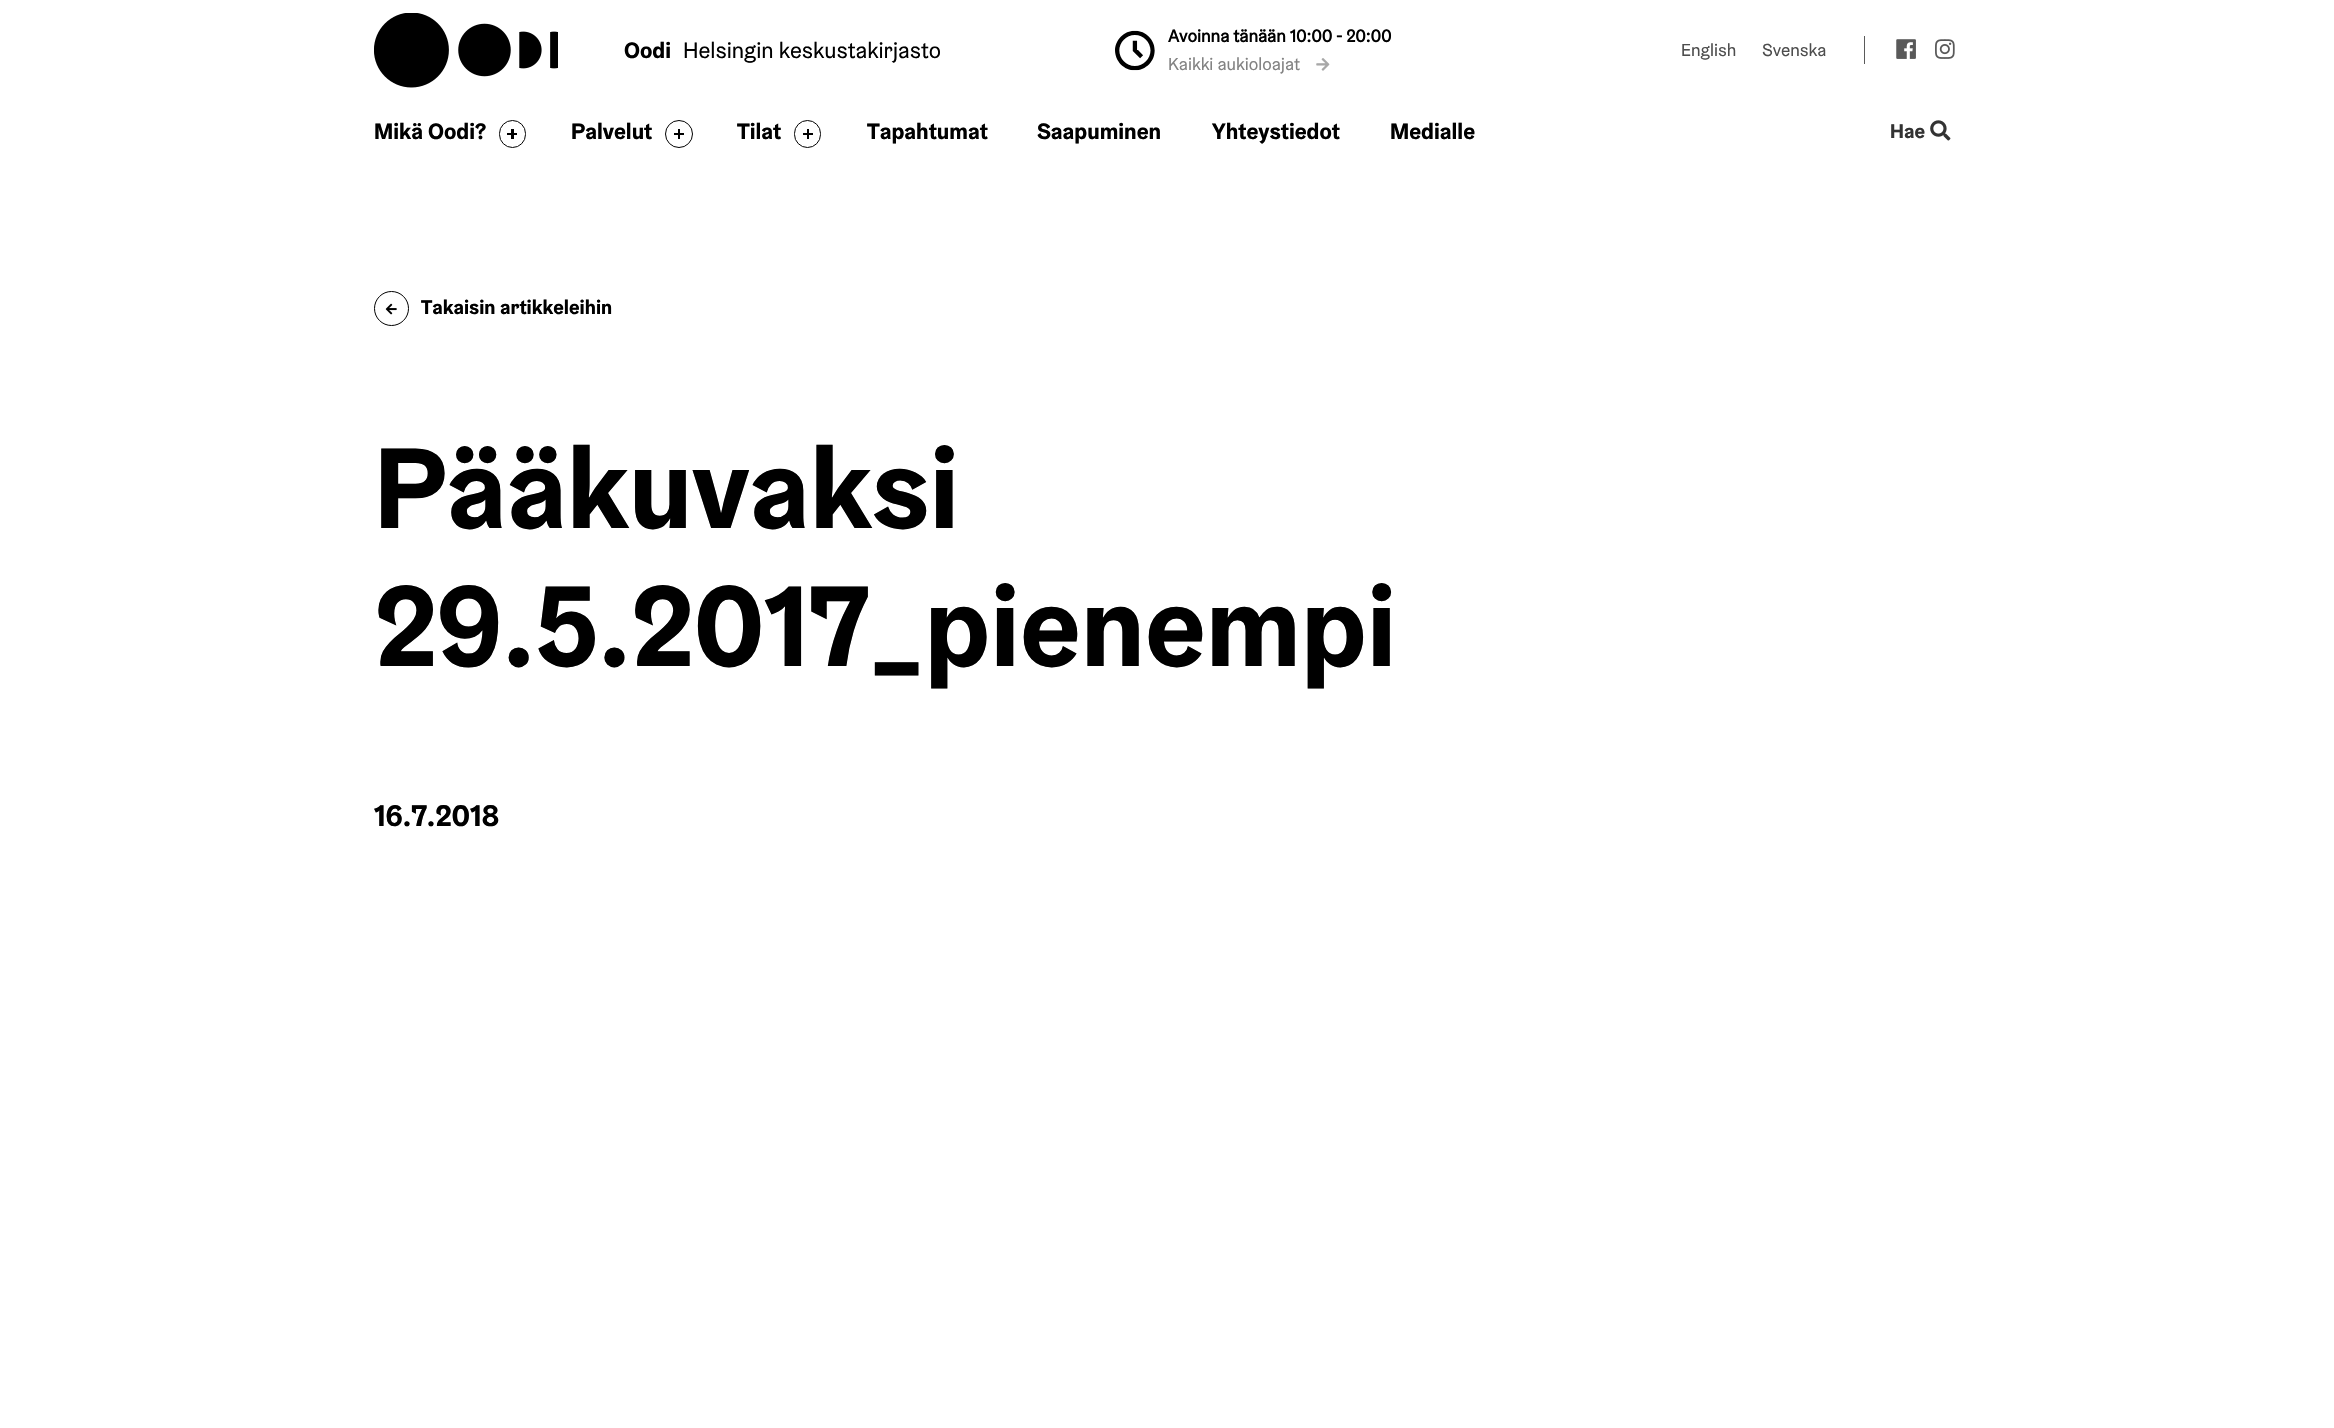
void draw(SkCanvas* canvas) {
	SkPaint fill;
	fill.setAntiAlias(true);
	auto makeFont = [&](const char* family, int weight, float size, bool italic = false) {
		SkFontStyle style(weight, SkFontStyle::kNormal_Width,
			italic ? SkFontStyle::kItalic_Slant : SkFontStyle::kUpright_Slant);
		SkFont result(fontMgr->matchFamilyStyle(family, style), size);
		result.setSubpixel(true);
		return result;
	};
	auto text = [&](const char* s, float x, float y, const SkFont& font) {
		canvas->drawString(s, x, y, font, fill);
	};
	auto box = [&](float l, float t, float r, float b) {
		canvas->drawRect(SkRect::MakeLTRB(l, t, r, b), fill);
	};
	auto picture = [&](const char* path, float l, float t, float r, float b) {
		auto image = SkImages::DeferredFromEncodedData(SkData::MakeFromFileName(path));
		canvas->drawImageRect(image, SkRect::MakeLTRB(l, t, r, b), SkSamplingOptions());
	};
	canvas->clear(0xFFFFFFFF);
	picture("image0.png", 374, 13, 558, 88);
	picture("image1.png", 1115, 30, 1155, 71);
	picture("image2.png", 1316, 58, 1330, 71);
	fill.setColor(0xFF5A5A5A);
	box(1864, 36, 1865, 64);
	picture("image3.png", 1896, 39, 1916, 59);
	picture("image4.png", 1935, 39, 1955, 59);
	fill.setStyle(SkPaint::kStroke_Style);
	fill.setStrokeWidth(1);
	fill.setColor(0xFF000000);
	canvas->drawRoundRect(SkRect::MakeLTRB(499.5f, 120.5f, 525.5f, 147.5f), 13, 13, fill);
	fill.setStyle(SkPaint::kFill_Style);
	box(511, 129, 514, 139);
	box(507, 133, 517, 135);
	fill.setStyle(SkPaint::kStroke_Style);
	canvas->drawCircle(679, 134, 13.5f, fill);
	fill.setStyle(SkPaint::kFill_Style);
	box(678, 129, 680, 139);
	box(674, 133, 684, 135);
	fill.setStyle(SkPaint::kStroke_Style);
	canvas->drawRoundRect(SkRect::MakeLTRB(794.5f, 120.5f, 820.5f, 147.5f), 13, 13, fill);
	fill.setStyle(SkPaint::kFill_Style);
	box(807, 129, 809, 139);
	box(803, 133, 813, 135);
	picture("image5.png", 1930, 120, 1951, 141);
	fill.setStyle(SkPaint::kStroke_Style);
	canvas->drawCircle(391.5f, 308.5f, 17, fill);
	picture("image6.png", 385, 303, 397, 315);
	auto font1 = makeFont("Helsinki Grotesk", 700, 22.5f);
	fill.setStyle(SkPaint::kFill_Style);
	text("Oodi", 624, 58, font1);
	auto font2 = makeFont("Helsinki Grotesk", 400, 22.5f);
	text("Helsingin keskustakirjasto", 683, 58, font2);
	auto font3 = makeFont("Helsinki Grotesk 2", 700, 17.5f);
	text("Avoinna tänään 10:00 - 20:00", 1168, 42, font3);
	auto font4 = makeFont("Helsinki Grotesk", 400, 17.5f);
	fill.setColor(0xFF828282);
	text("Kaikki aukioloajat", 1168, 70, font4);
	fill.setColor(0xFF4D4D4D);
	text("English", 1681, 56, font4);
	text("Svenska", 1762, 56, font4);
	fill.setColor(0xFF000000);
	text("Mikä Oodi?", 374, 139, font1);
	text("Palvelut", 571, 139, font1);
	text("Tilat", 737, 139, font1);
	text("Tapahtumat", 867, 139, font1);
	text("Saapuminen", 1037, 139, font1);
	text("Yhteystiedot", 1212, 139, font1);
	text("Medialle", 1390, 139, font1);
	auto font5 = makeFont("Helsinki Grotesk", 700, 20);
	fill.setColor(0xFF333333);
	text("Hae", 1890, 138, font5);
	fill.setColor(0xFF000000);
	text("Takaisin artikkeleihin", 421, 314, font5);
	auto font6 = makeFont("Helsinki Grotesk", 700, 115);
	text("Pääkuvaksi", 374, 528, font6);
	text("29.5.2017_pienempi", 374, 666, font6);
	auto font7 = makeFont("Helsinki Grotesk", 700, 30);
	text("16.7.2018", 374, 826, font7);
}
